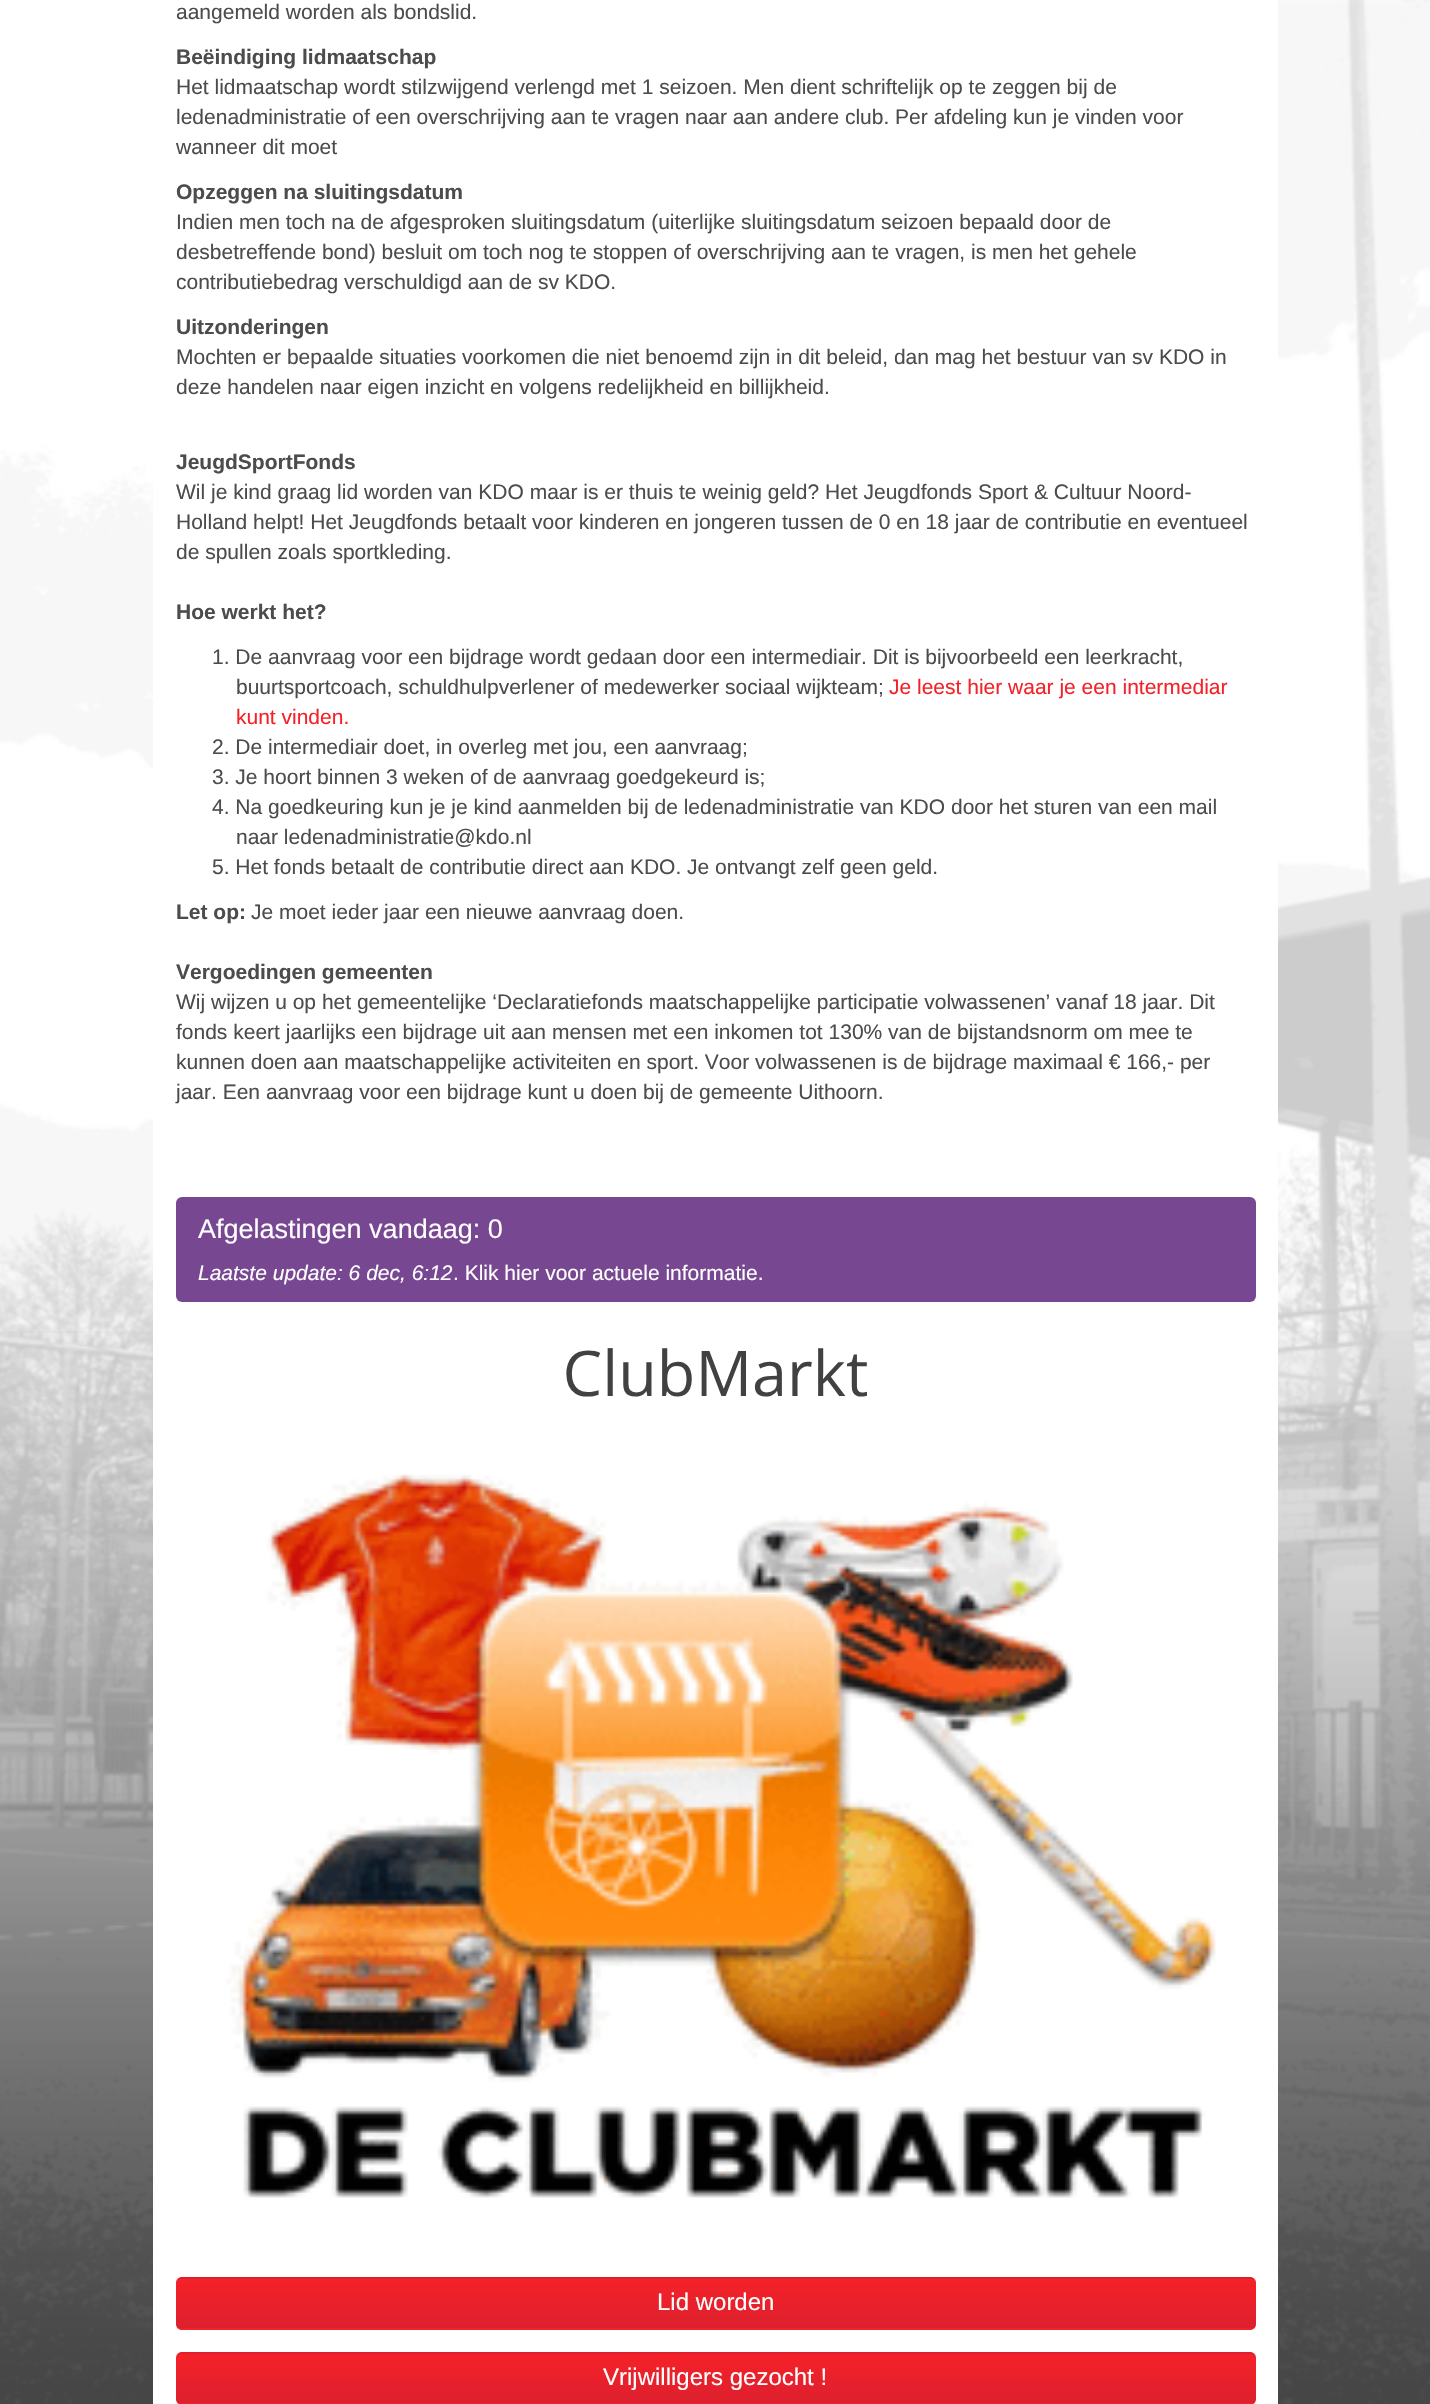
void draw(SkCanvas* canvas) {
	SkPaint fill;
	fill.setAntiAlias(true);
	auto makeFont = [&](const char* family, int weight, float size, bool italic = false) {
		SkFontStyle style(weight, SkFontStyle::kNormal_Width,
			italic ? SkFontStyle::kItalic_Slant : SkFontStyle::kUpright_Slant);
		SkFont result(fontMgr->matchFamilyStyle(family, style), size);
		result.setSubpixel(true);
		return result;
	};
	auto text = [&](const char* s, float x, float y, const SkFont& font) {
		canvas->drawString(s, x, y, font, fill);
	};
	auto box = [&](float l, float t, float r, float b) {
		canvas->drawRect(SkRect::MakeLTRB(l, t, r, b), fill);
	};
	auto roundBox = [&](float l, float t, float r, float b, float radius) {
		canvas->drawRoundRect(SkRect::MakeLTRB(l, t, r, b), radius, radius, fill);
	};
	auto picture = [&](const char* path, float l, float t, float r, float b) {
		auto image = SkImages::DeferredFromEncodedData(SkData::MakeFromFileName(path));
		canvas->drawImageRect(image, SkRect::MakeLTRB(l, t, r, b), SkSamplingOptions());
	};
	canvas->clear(0xFFFFFFFF);
	picture("image0.png", 0, 1331, 1430, 2404);
	picture("image1.png", 0, 0, 1430, 2404);
	fill.setColor(0xFFFFFFFF);
	box(153, 0, 1278, 2404);
	fill.setColor(0xFF774792);
	roundBox(176, 1197, 1256, 1302, 6);
	picture("image2.png", 226, 1348, 1216, 2198);
	canvas->save();
	canvas->clipPath(SkPathBuilder().moveTo(182, 2277).lineTo(1250, 2277).cubicTo(1253.5f, 2277, 1256, 2279.5f, 1256, 2283).lineTo(1256, 2324).cubicTo(1256, 2327.5f, 1253.5f, 2330, 1250, 2330).lineTo(182, 2330).cubicTo(178.5f, 2330, 176, 2327.5f, 176, 2324).lineTo(176, 2283).cubicTo(176, 2279.5f, 178.5f, 2277, 182, 2277).close().detach(), true);
	{
		const SkColor colors[] = {0xFFF52128, 0xFFDD202E};
		const float stops[] = {0, 1};
		const SkPoint ends[] = {{716, 2229}, {716, 2279}};
		fill.setShader(SkGradientShader::MakeLinear(ends, colors, stops, 2, SkTileMode::kClamp));
		fill.setAlpha(255);
	}
	box(176, 2277, 1256, 2279);
	{
		const SkColor colors[] = {0xFFF52128, 0xFFDD202E};
		const float stops[] = {0, 1};
		const SkPoint ends[] = {{716, 2279}, {716, 2328}};
		fill.setShader(SkGradientShader::MakeLinear(ends, colors, stops, 2, SkTileMode::kClamp));
		fill.setAlpha(255);
	}
	box(176, 2279, 1256, 2328);
	{
		const SkColor colors[] = {0xFFF52128, 0xFFDD202E};
		const float stops[] = {0, 1};
		const SkPoint ends[] = {{716, 2328}, {716, 2378}};
		fill.setShader(SkGradientShader::MakeLinear(ends, colors, stops, 2, SkTileMode::kClamp));
		fill.setAlpha(255);
	}
	box(176, 2328, 1256, 2330);
	canvas->restore();
	canvas->save();
	canvas->clipPath(SkPathBuilder().moveTo(182, 2352).lineTo(1250, 2352).cubicTo(1253.5f, 2352, 1256, 2354.5f, 1256, 2358).lineTo(1256, 2399).cubicTo(1256, 2402.5f, 1253.5f, 2405, 1250, 2405).lineTo(182, 2405).cubicTo(178.5f, 2405, 176, 2402.5f, 176, 2399).lineTo(176, 2358).cubicTo(176, 2354.5f, 178.5f, 2352, 182, 2352).close().detach(), true);
	{
		const SkColor colors[] = {0xFFF52128, 0xFFDD202E};
		const float stops[] = {0, 1};
		const SkPoint ends[] = {{716, 2304}, {716, 2354}};
		fill.setShader(SkGradientShader::MakeLinear(ends, colors, stops, 2, SkTileMode::kClamp));
		fill.setAlpha(255);
	}
	box(176, 2352, 1256, 2354);
	{
		const SkColor colors[] = {0xFFF52128, 0xFFDD202E};
		const float stops[] = {0, 1};
		const SkPoint ends[] = {{716, 2354}, {716, 2403}};
		fill.setShader(SkGradientShader::MakeLinear(ends, colors, stops, 2, SkTileMode::kClamp));
		fill.setAlpha(255);
	}
	box(176, 2354, 1256, 2403);
	{
		const SkColor colors[] = {0xFFF52128, 0xFFDD202E};
		const float stops[] = {0, 1};
		const SkPoint ends[] = {{716, 2403}, {716, 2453}};
		fill.setShader(SkGradientShader::MakeLinear(ends, colors, stops, 2, SkTileMode::kClamp));
		fill.setAlpha(255);
	}
	box(176, 2403, 1256, 2404);
	canvas->restore();
	auto font1 = makeFont("Liberation Sans", 400, 21);
	fill.setShader(nullptr);
	fill.setColor(0xFF4C4C4C);
	text("aangemeld worden als bondslid.", 176, 19, font1);
	auto font2 = makeFont("Liberation Sans", 700, 21);
	text("Beëindiging lidmaatschap", 176, 64, font2);
	text("Het lidmaatschap wordt stilzwijgend verlengd met 1 seizoen. Men dient schriftelijk op te zeggen bij de", 176, 94, font1);
	text("ledenadministratie of een overschrijving aan te vragen naar aan andere club. Per afdeling kun je vinden voor", 176, 124, font1);
	text("wanneer dit moet", 176, 154, font1);
	text("Opzeggen na sluitingsdatum", 176, 199, font2);
	text("Indien men toch na de afgesproken sluitingsdatum (uiterlijke sluitingsdatum seizoen bepaald door de", 176, 229, font1);
	text("desbetreffende bond) besluit om toch nog te stoppen of overschrijving aan te vragen, is men het gehele", 176, 259, font1);
	text("contributiebedrag verschuldigd aan de sv KDO.", 176, 289, font1);
	text("Uitzonderingen", 176, 334, font2);
	text("Mochten er bepaalde situaties voorkomen die niet benoemd zijn in dit beleid, dan mag het bestuur van sv KDO in", 176, 364, font1);
	text("deze handelen naar eigen inzicht en volgens redelijkheid en billijkheid.", 176, 394, font1);
	text("JeugdSportFonds", 176, 469, font2);
	text("Wil je kind graag lid worden van KDO maar is er thuis te weinig geld? Het Jeugdfonds Sport & Cultuur Noord-", 176, 499, font1);
	text("Holland helpt! Het Jeugdfonds betaalt voor kinderen en jongeren tussen de 0 en 18 jaar de contributie en eventueel", 176, 529, font1);
	text("de spullen zoals sportkleding.", 176, 559, font1);
	text("Hoe werkt het?", 176, 619, font2);
	text("1. De aanvraag voor een bijdrage wordt gedaan door een intermediair. Dit is bijvoorbeeld een leerkracht,", 212, 664, font1);
	text("buurtsportcoach, schuldhulpverlener of medewerker sociaal wijkteam;", 236, 694, font1);
	fill.setColor(0xFFF52128);
	text("Je leest hier waar je een intermediar", 889, 694, font1);
	text("kunt vinden.", 236, 724, font1);
	fill.setColor(0xFF4C4C4C);
	text("2. De intermediair doet, in overleg met jou, een aanvraag;", 212, 754, font1);
	text("3. Je hoort binnen 3 weken of de aanvraag goedgekeurd is;", 212, 784, font1);
	text("4. Na goedkeuring kun je je kind aanmelden bij de ledenadministratie van KDO door het sturen van een mail", 212, 814, font1);
	text("naar ledenadministratie@kdo.nl", 236, 844, font1);
	text("5. Het fonds betaalt de contributie direct aan KDO. Je ontvangt zelf geen geld.", 212, 874, font1);
	text("Let op:", 176, 919, font2);
	text("Je moet ieder jaar een nieuwe aanvraag doen.", 251, 919, font1);
	text("Vergoedingen gemeenten", 176, 979, font2);
	text("Wij wijzen u op het gemeentelijke ‘Declaratiefonds maatschappelijke participatie volwassenen’ vanaf 18 jaar. Dit", 176, 1009, font1);
	text("fonds keert jaarlijks een bijdrage uit aan mensen met een inkomen tot 130% van de bijstandsnorm om mee te", 176, 1039, font1);
	text("kunnen doen aan maatschappelijke activiteiten en sport. Voor volwassenen is de bijdrage maximaal € 166,- per", 176, 1069, font1);
	text("jaar. Een aanvraag voor een bijdrage kunt u doen bij de gemeente Uithoorn.", 176, 1099, font1);
	auto font3 = makeFont("Liberation Sans", 400, 27);
	fill.setColor(0xFFFFFFFF);
	text("Afgelastingen vandaag: 0", 198, 1238, font3);
	auto font4 = makeFont("Liberation Sans", 400, 21, true);
	text("Laatste update: 6 dec, 6:12", 198, 1280, font4);
	text(". Klik hier voor actuele informatie.", 453, 1280, font1);
	auto font5 = makeFont("Liberation Sans", 400, 24);
	text("Lid worden", 657, 2310, font5);
	text("Vrijwilligers gezocht !", 603, 2385, font5);
}
